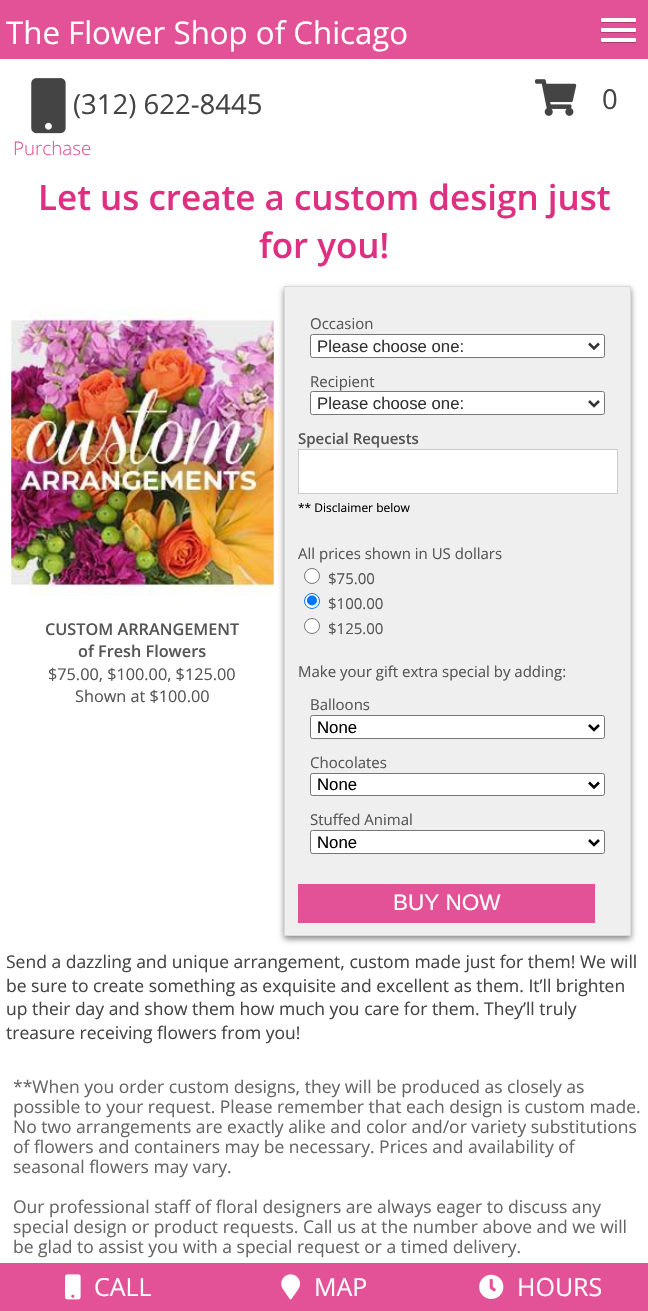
void draw(SkCanvas* canvas) {
	SkPaint fill;
	fill.setAntiAlias(true);
	auto makeFont = [&](const char* family, int weight, float size, bool italic = false) {
		SkFontStyle style(weight, SkFontStyle::kNormal_Width,
			italic ? SkFontStyle::kItalic_Slant : SkFontStyle::kUpright_Slant);
		SkFont result(fontMgr->matchFamilyStyle(family, style), size);
		result.setSubpixel(true);
		return result;
	};
	auto text = [&](const char* s, float x, float y, const SkFont& font) {
		canvas->drawString(s, x, y, font, fill);
	};
	auto box = [&](float l, float t, float r, float b) {
		canvas->drawRect(SkRect::MakeLTRB(l, t, r, b), fill);
	};
	auto roundBox = [&](float l, float t, float r, float b, float radius) {
		canvas->drawRoundRect(SkRect::MakeLTRB(l, t, r, b), radius, radius, fill);
	};
	auto picture = [&](const char* path, float l, float t, float r, float b) {
		auto image = SkImages::DeferredFromEncodedData(SkData::MakeFromFileName(path));
		canvas->drawImageRect(image, SkRect::MakeLTRB(l, t, r, b), SkSamplingOptions());
	};
	canvas->clear(0xFFFFFFFF);
	fill.setColor(0xFFE35297);
	box(0, 0, 648, 59);
	fill.setColor(0xFFAA3E71);
	canvas->drawPath(SkPathBuilder().moveTo(601, 19.5f).cubicTo(600.5f, 20, 600.5f, 23, 602, 23).lineTo(629.5f, 23).cubicTo(634, 23, 636, 24.5f, 636, 21).lineTo(635, 21).lineTo(602, 21).cubicTo(601, 21, 601, 20, 601, 19.5f).close().detach(), fill);
	fill.setColor(0xFFFFFFFF);
	roundBox(601, 18, 636, 22, 1);
	fill.setColor(0xFFAA3E71);
	canvas->drawPath(SkPathBuilder().moveTo(601, 29.5f).cubicTo(600.5f, 30, 600.5f, 33, 602, 33).lineTo(629.5f, 33).cubicTo(634, 33, 636, 34.5f, 636, 31).lineTo(635, 31).lineTo(602, 31).cubicTo(601, 31, 601, 30, 601, 29.5f).close().detach(), fill);
	fill.setColor(0xFFFFFFFF);
	roundBox(601, 28, 636, 32, 1);
	fill.setColor(0xFFAA3E71);
	canvas->drawPath(SkPathBuilder().moveTo(601, 39.5f).cubicTo(600.5f, 40, 600.5f, 43, 602, 43).lineTo(629.5f, 43).cubicTo(634, 43, 636, 44.5f, 636, 41).lineTo(635, 41).lineTo(602, 41).cubicTo(601, 41, 601, 40, 601, 39.5f).close().detach(), fill);
	fill.setColor(0xFFFFFFFF);
	roundBox(601, 38, 636, 42, 1);
	picture("image0.png", 31, 78, 66, 134);
	picture("image1.png", 535, 79, 577, 116);
	picture("image2.png", 11, 310, 274, 596);
	fill.setColor(0xFF888888);
	fill.setMaskFilter(SkMaskFilter::MakeBlur(kNormal_SkBlurStyle, 3));
	canvas->drawRect(SkRect::MakeLTRB(284, 289, 631, 939), fill);
	fill.setMaskFilter(nullptr);
	fill.setColor(0xFFEFEFEF);
	canvas->drawRect(SkRect::MakeLTRB(284.5f, 286.5f, 630.5f, 935.5f), fill);
	fill.setStyle(SkPaint::kStroke_Style);
	fill.setStrokeWidth(1);
	fill.setColor(0xFFDADADA);
	canvas->drawRect(SkRect::MakeLTRB(284.5f, 286.5f, 630.5f, 935.5f), fill);
	fill.setStyle(SkPaint::kFill_Style);
	fill.setColor(0xFFFFFFFF);
	canvas->drawRoundRect(SkRect::MakeLTRB(310.5f, 334.5f, 604.5f, 357.5f), 2, 2, fill);
	fill.setStyle(SkPaint::kStroke_Style);
	fill.setColor(0xFF767676);
	canvas->drawRoundRect(SkRect::MakeLTRB(310.5f, 334.5f, 604.5f, 357.5f), 2, 2, fill);
	fill.setStrokeWidth(2.5f);
	fill.setColor(0xFF333333);
	canvas->drawPath(SkPathBuilder().moveTo(589, 343.5f).lineTo(594, 348.5f).lineTo(599, 343.5f).detach(), fill);
	fill.setStyle(SkPaint::kFill_Style);
	fill.setColor(0xFFFFFFFF);
	canvas->drawRoundRect(SkRect::MakeLTRB(310.5f, 391.5f, 604.5f, 414.5f), 2, 2, fill);
	fill.setStyle(SkPaint::kStroke_Style);
	fill.setStrokeWidth(1);
	fill.setColor(0xFF767676);
	canvas->drawRoundRect(SkRect::MakeLTRB(310.5f, 391.5f, 604.5f, 414.5f), 2, 2, fill);
	fill.setStrokeWidth(2.5f);
	fill.setColor(0xFF333333);
	canvas->drawPath(SkPathBuilder().moveTo(589, 401).lineTo(594, 406).lineTo(599, 401).detach(), fill);
	fill.setStyle(SkPaint::kFill_Style);
	fill.setColor(0xFFFFFFFF);
	canvas->drawRect(SkRect::MakeLTRB(298.5f, 449.5f, 617.5f, 493.5f), fill);
	fill.setStyle(SkPaint::kStroke_Style);
	fill.setStrokeWidth(1);
	fill.setColor(0xFFCCCCCC);
	canvas->drawRect(SkRect::MakeLTRB(298.5f, 449.5f, 617.5f, 493.5f), fill);
	fill.setStyle(SkPaint::kFill_Style);
	fill.setColor(0xFFFFFFFF);
	canvas->drawCircle(312, 576, 7.5f, fill);
	fill.setStyle(SkPaint::kStroke_Style);
	fill.setColor(0xFF767676);
	canvas->drawCircle(312, 576, 7.5f, fill);
	fill.setStyle(SkPaint::kFill_Style);
	fill.setColor(0xFFFFFFFF);
	canvas->drawCircle(312, 601, 7.5f, fill);
	fill.setStyle(SkPaint::kStroke_Style);
	fill.setColor(0xFF0075FF);
	canvas->drawCircle(312, 601, 7.5f, fill);
	fill.setStyle(SkPaint::kFill_Style);
	canvas->drawCircle(312, 600.5f, 5, fill);
	fill.setColor(0xFFFFFFFF);
	canvas->drawCircle(312, 626, 7.5f, fill);
	fill.setStyle(SkPaint::kStroke_Style);
	fill.setColor(0xFF767676);
	canvas->drawCircle(312, 626, 7.5f, fill);
	fill.setStyle(SkPaint::kFill_Style);
	fill.setColor(0xFFFFFFFF);
	canvas->drawRoundRect(SkRect::MakeLTRB(310.5f, 715.5f, 604.5f, 738.5f), 2, 2, fill);
	fill.setStyle(SkPaint::kStroke_Style);
	fill.setColor(0xFF767676);
	canvas->drawRoundRect(SkRect::MakeLTRB(310.5f, 715.5f, 604.5f, 738.5f), 2, 2, fill);
	fill.setStrokeWidth(2.5f);
	fill.setColor(0xFF000000);
	canvas->drawPath(SkPathBuilder().moveTo(589, 725).lineTo(594, 730).lineTo(599, 725).detach(), fill);
	fill.setStyle(SkPaint::kFill_Style);
	fill.setColor(0xFFFFFFFF);
	canvas->drawRoundRect(SkRect::MakeLTRB(310.5f, 773.5f, 604.5f, 795.5f), 2, 2, fill);
	fill.setStyle(SkPaint::kStroke_Style);
	fill.setStrokeWidth(1);
	fill.setColor(0xFF767676);
	canvas->drawRoundRect(SkRect::MakeLTRB(310.5f, 773.5f, 604.5f, 795.5f), 2, 2, fill);
	fill.setStrokeWidth(2.5f);
	fill.setColor(0xFF000000);
	canvas->drawPath(SkPathBuilder().moveTo(589, 782.5f).lineTo(594, 787.5f).lineTo(599, 782.5f).detach(), fill);
	fill.setStyle(SkPaint::kFill_Style);
	fill.setColor(0xFFFFFFFF);
	canvas->drawRoundRect(SkRect::MakeLTRB(310.5f, 830.5f, 604.5f, 853.5f), 2, 2, fill);
	fill.setStyle(SkPaint::kStroke_Style);
	fill.setStrokeWidth(1);
	fill.setColor(0xFF767676);
	canvas->drawRoundRect(SkRect::MakeLTRB(310.5f, 830.5f, 604.5f, 853.5f), 2, 2, fill);
	fill.setStrokeWidth(2.5f);
	fill.setColor(0xFF000000);
	canvas->drawPath(SkPathBuilder().moveTo(589, 840).lineTo(594, 845).lineTo(599, 840).detach(), fill);
	fill.setStyle(SkPaint::kFill_Style);
	fill.setColor(0xFFE35297);
	box(298, 884, 595, 923);
	box(0, 1263, 648, 1311);
	picture("image3.png", 65, 1274, 81, 1300);
	picture("image4.png", 281, 1274, 300, 1300);
	picture("image5.png", 479, 1274, 504, 1299);
	auto font1 = makeFont("Open Sans", 400, 31.25f);
	fill.setColor(0xFFFFFFFF);
	text("The Flower Shop of Chicago", 6, 44, font1);
	auto font2 = makeFont("Open Sans", 400, 27.5f);
	fill.setColor(0xFF444444);
	text("(312) 622-8445", 73, 114, font2);
	text("0", 602, 109, font2);
	auto font3 = makeFont("Open Sans", 300, 18.75f);
	fill.setColor(0xFFE35297);
	text("Purchase", 13, 155, font3);
	auto font4 = makeFont("Open Sans", 600, 35);
	fill.setColor(0xFFDF2F80);
	text("Let us create a custom design just", 38, 210, font4);
	text("for you!", 259, 258, font4);
	auto font5 = makeFont("Open Sans", 600, 16.25f);
	fill.setColor(0xFF555555);
	text("CUSTOM ARRANGEMENT", 45, 635, font5);
	text("of Fresh Flowers", 78, 657, font5);
	auto font6 = makeFont("Open Sans", 400, 16.25f);
	text("$75.00, $100.00, $125.00", 48, 680, font6);
	text("Shown at $100.00", 75, 702, font6);
	auto font7 = makeFont("Open Sans", 400, 15);
	text("Occasion", 310, 329, font7);
	auto font8 = makeFont("Liberation Sans", 400, 16.75f);
	fill.setColor(0xFF333333);
	text("Please choose one:", 317, 352, font8);
	fill.setColor(0xFF555555);
	text("Recipient", 310, 387, font7);
	fill.setColor(0xFF333333);
	text("Please choose one:", 317, 409, font8);
	auto font9 = makeFont("Open Sans", 600, 15);
	fill.setColor(0xFF555555);
	text("Special Requests", 298, 444, font9);
	auto font10 = makeFont("Open Sans", 400, 12);
	fill.setColor(0xFF000000);
	text("** Disclaimer below", 298, 512, font10);
	fill.setColor(0xFF555555);
	text("All prices shown in US dollars", 298, 559, font7);
	text("$75.00", 328, 584, font7);
	text("$100.00", 328, 609, font7);
	text("$125.00", 328, 634, font7);
	text("Make your gift extra special by adding:", 298, 677, font7);
	text("Balloons", 310, 710, font7);
	fill.setColor(0xFF000000);
	text("None", 317, 733, font8);
	fill.setColor(0xFF555555);
	text("Chocolates", 310, 768, font7);
	fill.setColor(0xFF000000);
	text("None", 317, 790, font8);
	fill.setColor(0xFF555555);
	text("Stuffed Animal", 310, 825, font7);
	fill.setColor(0xFF000000);
	text("None", 317, 848, font8);
	auto font11 = makeFont("Liberation Sans", 400, 22.5f);
	fill.setColor(0xFFFFFFFF);
	text("BUY NOW", 393, 910, font11);
	auto font12 = makeFont("Open Sans", 400, 17.5f);
	fill.setColor(0xFF444444);
	text("Send a dazzling and unique arrangement, custom made just for them! We will", 6, 968, font12);
	text("be sure to create something as exquisite and excellent as them. It’ll brighten", 6, 992, font12);
	text("up their day and show them how much you care for them. They’ll truly", 6, 1015, font12);
	text("treasure receiving flowers from you!", 6, 1039, font12);
	fill.setColor(0xFF666666);
	text("**When you order custom designs, they will be produced as closely as", 13, 1093, font12);
	text("possible to your request. Please remember that each design is custom made.", 13, 1113, font12);
	text("No two arrangements are exactly alike and color and/or variety substitutions", 13, 1133, font12);
	text("of flowers and containers may be necessary. Prices and availability of", 13, 1153, font12);
	text("seasonal flowers may vary.", 13, 1173, font12);
	text("Our professional staff of floral designers are always eager to discuss any", 13, 1213, font12);
	text("special design or product requests. Call us at the number above and we will", 13, 1233, font12);
	text("be glad to assist you with a special request or a timed delivery.", 13, 1253, font12);
	auto font13 = makeFont("Open Sans", 400, 25);
	fill.setColor(0xFFFFFFFF);
	text("CALL", 94, 1296, font13);
	text("MAP", 314, 1296, font13);
	text("HOURS", 517, 1296, font13);
}
